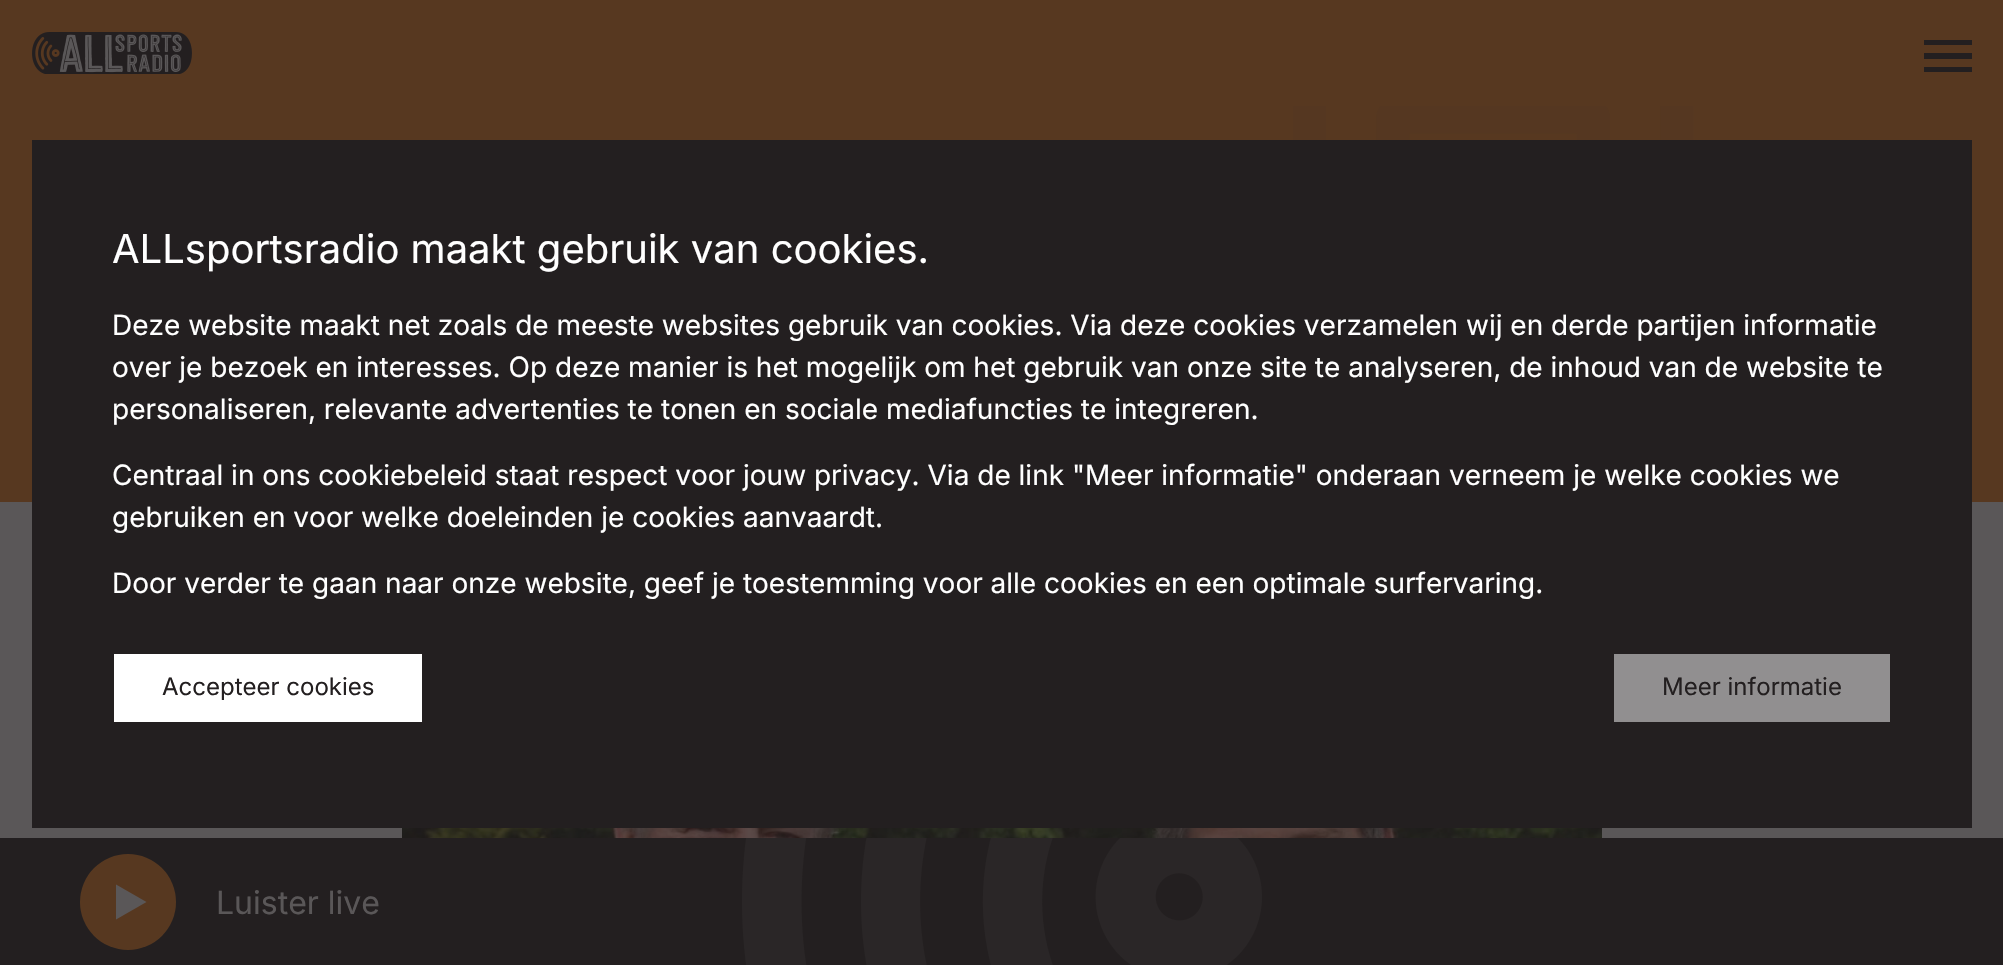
void draw(SkCanvas* canvas) {
	SkPaint fill;
	fill.setAntiAlias(true);
	auto makeFont = [&](const char* family, int weight, float size, bool italic = false) {
		SkFontStyle style(weight, SkFontStyle::kNormal_Width,
			italic ? SkFontStyle::kItalic_Slant : SkFontStyle::kUpright_Slant);
		SkFont result(fontMgr->matchFamilyStyle(family, style), size);
		result.setSubpixel(true);
		return result;
	};
	auto text = [&](const char* s, float x, float y, const SkFont& font) {
		canvas->drawString(s, x, y, font, fill);
	};
	auto box = [&](float l, float t, float r, float b) {
		canvas->drawRect(SkRect::MakeLTRB(l, t, r, b), fill);
	};
	auto picture = [&](const char* path, float l, float t, float r, float b) {
		auto image = SkImages::DeferredFromEncodedData(SkData::MakeFromFileName(path));
		canvas->drawImageRect(image, SkRect::MakeLTRB(l, t, r, b), SkSamplingOptions());
	};
	canvas->clear(0xFF5A5758);
	fill.setColor(0xFF573820);
	box(0, 0, 2003, 502);
	picture("image0.png", 1293, 106, 1694, 140);
	picture("image1.png", 402, 828, 1602, 838);
	picture("image2.png", 32, 32, 192, 74);
	fill.setColor(0xFF231F20);
	box(1924, 67, 1972, 72);
	box(1924, 53, 1972, 59);
	box(1924, 40, 1972, 45);
	box(32, 140, 1972, 828);
	fill.setColor(0xFFFFFFFF);
	box(114, 654, 422, 722);
	fill.setColor(0xFF918F90);
	box(1614, 654, 1890, 722);
	fill.setColor(0xFF231F20);
	box(0, 838, 2003, 965);
	fill.setColor(0xFF573820);
	canvas->drawCircle(128, 902, 48, fill);
	fill.setColor(0xFF5A5758);
	canvas->drawPath(SkPathBuilder().moveTo(146.5f, 902).lineTo(116, 919.5f).lineTo(116, 884.5f).close().detach(), fill);
	picture("image3.png", 742, 838, 1262, 965);
	auto font1 = makeFont("Inter", 400, 40);
	fill.setColor(0xFFFFFFFF);
	text("ALLsportsradio maakt gebruik van cookies.", 112, 263, font1);
	auto font2 = makeFont("Inter", 400, 28);
	text("Deze website maakt net zoals de meeste websites gebruik van cookies. Via deze cookies verzamelen wij en derde partijen informatie", 112, 335, font2);
	text("over je bezoek en interesses. Op deze manier is het mogelijk om het gebruik van onze site te analyseren, de inhoud van de website te", 112, 377, font2);
	text("personaliseren, relevante advertenties te tonen en sociale mediafuncties te integreren.", 112, 419, font2);
	text("Centraal in ons cookiebeleid staat respect voor jouw privacy. Via de link \"Meer informatie\" onderaan verneem je welke cookies we", 112, 485, font2);
	text("gebruiken en voor welke doeleinden je cookies aanvaardt.", 112, 527, font2);
	text("Door verder te gaan naar onze website, geef je toestemming voor alle cookies en een optimale surfervaring.", 112, 593, font2);
	auto font3 = makeFont("Inter", 400, 24);
	fill.setColor(0xFF231F20);
	text("Accepteer cookies", 162, 695, font3);
	text("Meer informatie", 1662, 695, font3);
	auto font4 = makeFont("Inter", 400, 32);
	fill.setColor(0xFF5A5758);
	text("Luister live", 216, 914, font4);
}
